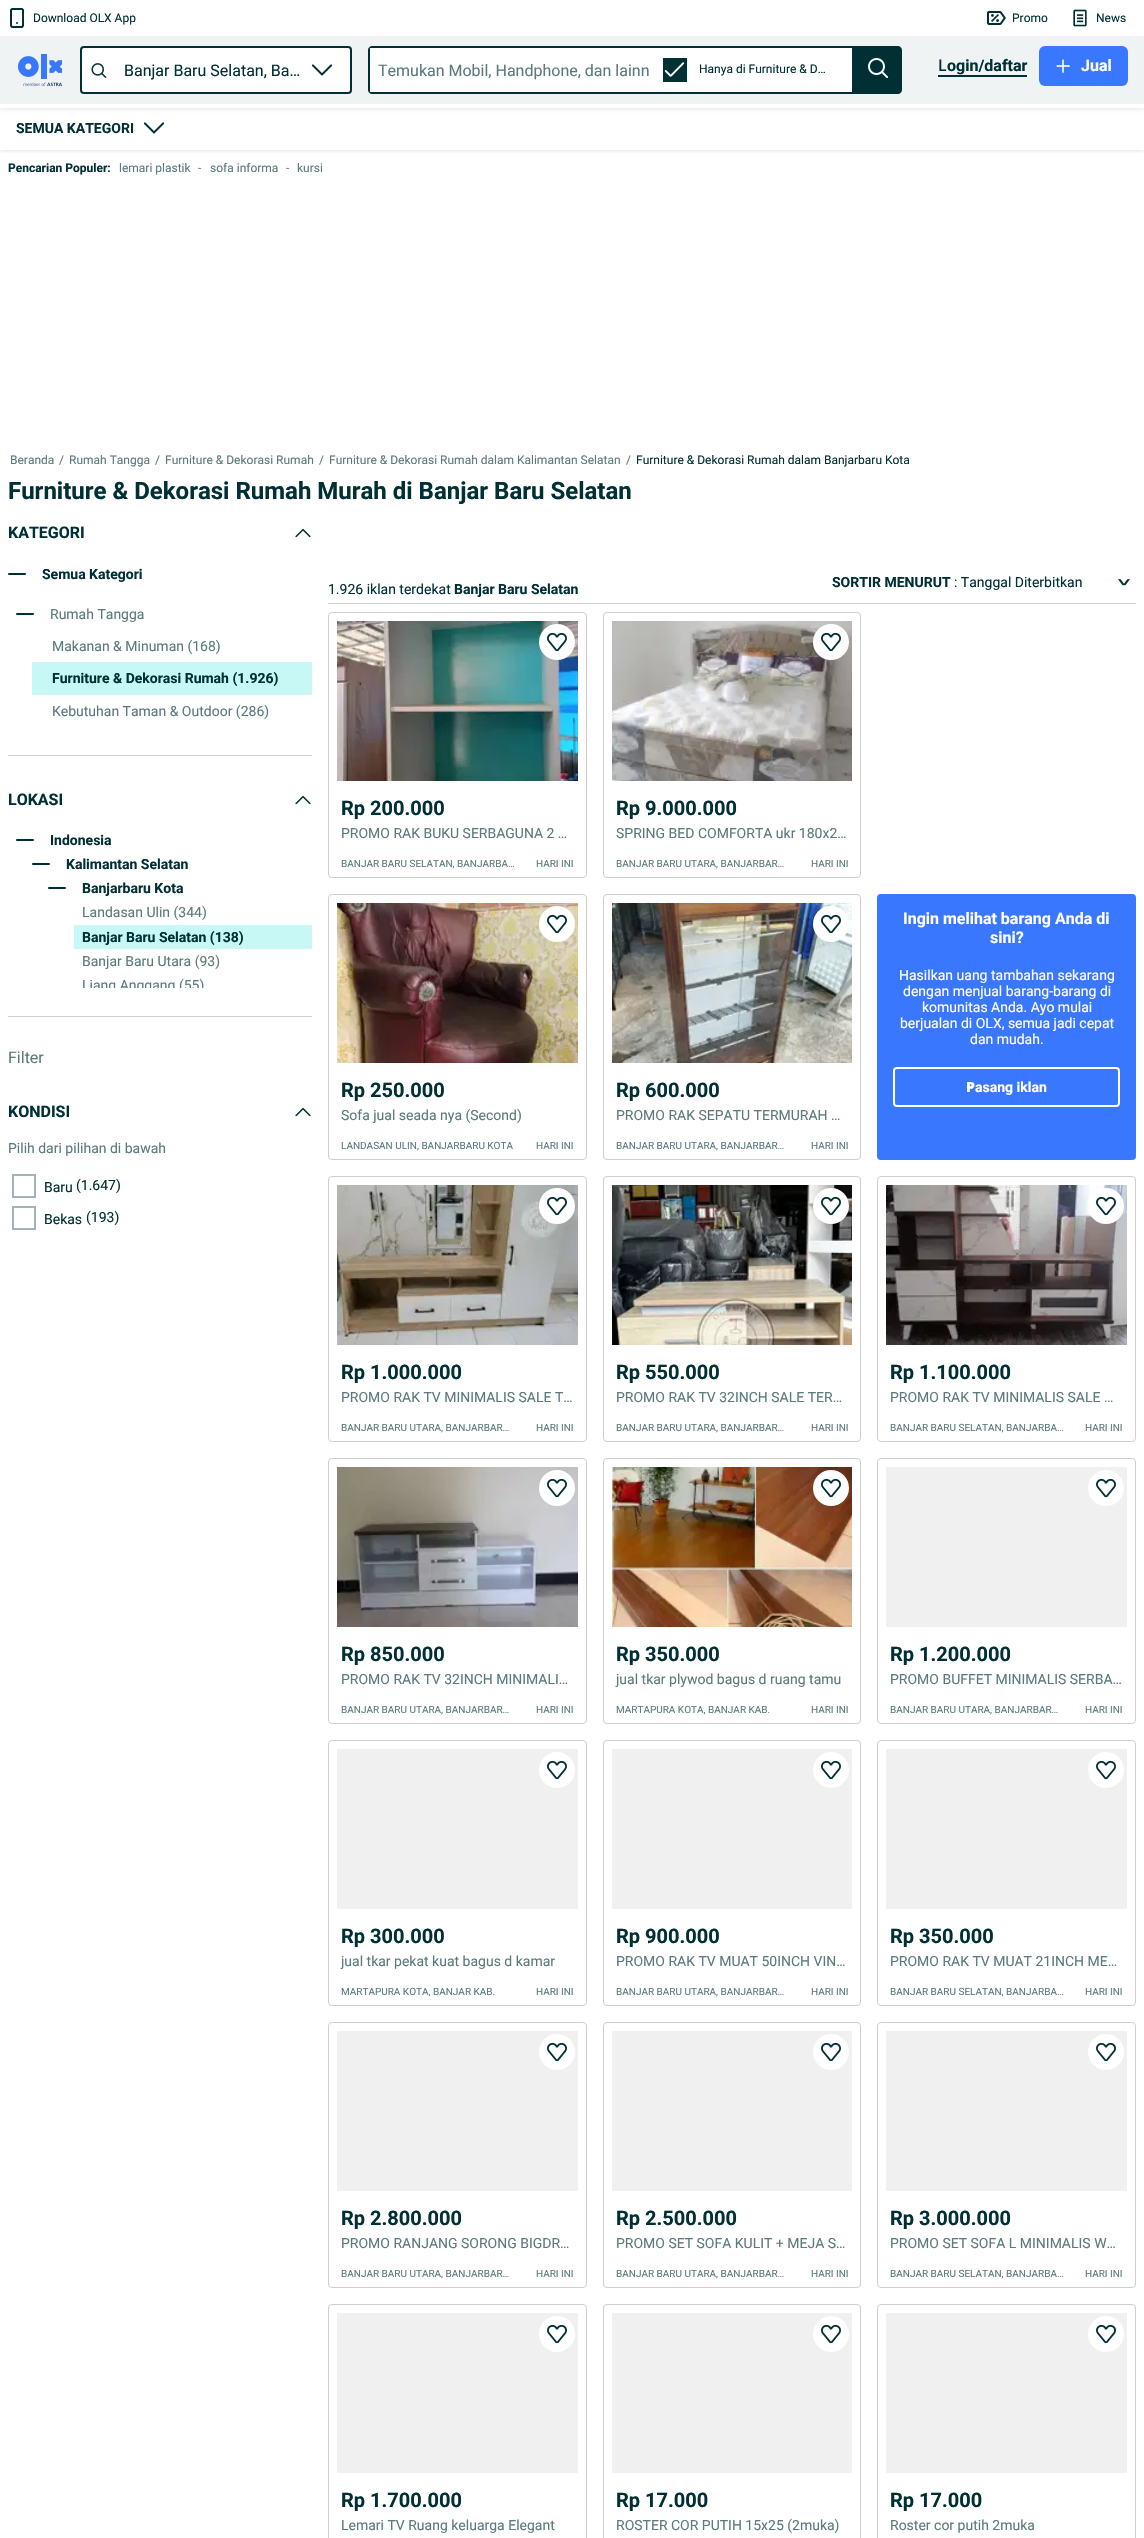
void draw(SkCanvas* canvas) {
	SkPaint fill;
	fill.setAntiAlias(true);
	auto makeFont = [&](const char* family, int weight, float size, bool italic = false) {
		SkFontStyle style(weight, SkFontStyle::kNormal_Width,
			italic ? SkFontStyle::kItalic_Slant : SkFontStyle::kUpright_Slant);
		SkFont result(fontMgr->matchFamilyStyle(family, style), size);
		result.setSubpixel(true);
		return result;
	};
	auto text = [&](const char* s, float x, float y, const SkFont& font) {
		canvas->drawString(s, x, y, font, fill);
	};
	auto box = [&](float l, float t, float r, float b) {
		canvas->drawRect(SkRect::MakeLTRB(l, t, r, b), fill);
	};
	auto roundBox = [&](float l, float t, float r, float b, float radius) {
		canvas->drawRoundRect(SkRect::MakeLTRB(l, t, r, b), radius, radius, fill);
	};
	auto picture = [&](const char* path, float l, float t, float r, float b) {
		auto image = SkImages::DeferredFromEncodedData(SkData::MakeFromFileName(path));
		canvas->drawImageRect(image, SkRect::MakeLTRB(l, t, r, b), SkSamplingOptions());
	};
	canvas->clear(0xFFFFFFFF);
	fill.setColor(0x1A000000);
	fill.setMaskFilter(SkMaskFilter::MakeBlur(kNormal_SkBlurStyle, 2));
	canvas->drawRect(SkRect::MakeLTRB(0, 37, 1144, 109), fill);
	fill.setMaskFilter(nullptr);
	canvas->save();
	canvas->clipRect(SkRect::MakeLTRB(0, 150, 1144, 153));
	fill.setMaskFilter(SkMaskFilter::MakeBlur(kNormal_SkBlurStyle, 2));
	canvas->drawRect(SkRect::MakeLTRB(0, 39, 1144, 151), fill);
	fill.setMaskFilter(nullptr);
	canvas->restore();
	fill.setColor(0xFFFFFFFF);
	box(0, 104, 1144, 108);
	box(0, 34, 1144, 36);
	picture("image0.png", 10, 8, 24, 28);
	picture("image1.png", 987, 11, 1006, 25);
	picture("image2.png", 1073, 9, 1087, 27);
	fill.setColor(0xFFF0F3F3);
	box(0, 36, 1144, 104);
	picture("image3.png", 17, 54, 63, 87);
	fill.setColor(0xFFFFFFFF);
	canvas->drawRoundRect(SkRect::MakeLTRB(81, 47, 351, 93), 3, 3, fill);
	fill.setStyle(SkPaint::kStroke_Style);
	fill.setStrokeWidth(2);
	fill.setColor(0xFF002F34);
	canvas->drawRoundRect(SkRect::MakeLTRB(81, 47, 351, 93), 3, 3, fill);
	picture("image4.png", 91, 63, 107, 78);
	picture("image5.png", 312, 64, 332, 76);
	canvas->drawPath(SkPathBuilder().moveTo(372, 47).lineTo(853, 47).lineTo(853, 93).lineTo(372, 93).cubicTo(370.5f, 93, 369, 91.5f, 369, 90).lineTo(369, 50).cubicTo(369, 48.5f, 370.5f, 47, 372, 47).close().detach(), fill);
	fill.setStyle(SkPaint::kFill_Style);
	fill.setColor(0xFFFFFFFF);
	box(370, 48, 852, 92);
	fill.setColor(0xFF002F34);
	box(663, 58, 687, 82);
	picture("image6.png", 664, 62, 685, 77);
	canvas->drawPath(SkPathBuilder().moveTo(854, 46).lineTo(898, 46).cubicTo(900, 46, 902, 48, 902, 50).lineTo(902, 90).cubicTo(902, 92, 900, 94, 898, 94).lineTo(854, 94).close().detach(), fill);
	picture("image7.png", 868, 58, 888, 78);
	box(938, 75, 1027, 77);
	fill.setColor(0xFF3A77FF);
	roundBox(1039, 46, 1128, 86, 6);
	picture("image8.png", 1056, 59, 1070, 73);
	picture("image5.png", 144, 122, 164, 134);
	picture("image9.png", 295, 528, 311, 538);
	fill.setColor(0xFF002F34);
	roundBox(8, 573, 26, 575, 1);
	roundBox(16, 613, 34, 615, 1);
	fill.setColor(0xFFC8F8F6);
	box(32, 662, 312, 695);
	fill.setColor(0xFFCFCDCD);
	box(8, 755, 312, 756);
	picture("image9.png", 295, 795, 311, 805);
	fill.setColor(0xFF002F34);
	roundBox(16, 839, 34, 841, 1);
	roundBox(32, 863, 50, 865, 1);
	roundBox(48, 887, 66, 889, 1);
	fill.setColor(0xFFC8F8F6);
	box(74, 925, 312, 949);
	fill.setColor(0xFFCFCDCD);
	box(8, 1016, 312, 1017);
	picture("image9.png", 295, 1107, 311, 1117);
	fill.setStyle(SkPaint::kStroke_Style);
	fill.setColor(0xFFA3B4B6);
	canvas->drawRect(SkRect::MakeLTRB(13, 1175, 35, 1197), fill);
	canvas->drawRect(SkRect::MakeLTRB(13, 1207, 35, 1229), fill);
	fill.setStyle(SkPaint::kFill_Style);
	fill.setColor(0xFFCFCDCD);
	box(328, 603, 1136, 604);
	picture("image10.png", 1118, 579, 1130, 586);
	fill.setStyle(SkPaint::kStroke_Style);
	fill.setStrokeWidth(1);
	canvas->drawRoundRect(SkRect::MakeLTRB(328.5f, 612.5f, 586.5f, 877.5f), 3.5f, 3.5f, fill);
	picture("image12.png", 337, 621, 578, 781);
	fill.setStyle(SkPaint::kFill_Style);
	fill.setColor(0xFFFFFFFF);
	canvas->drawCircle(557, 642, 18, fill);
	picture("image11.png", 547, 632, 567, 652);
	fill.setStyle(SkPaint::kStroke_Style);
	fill.setColor(0xFFCFCDCD);
	canvas->drawRoundRect(SkRect::MakeLTRB(603.5f, 612.5f, 860.5f, 877.5f), 3.5f, 3.5f, fill);
	picture("image13.png", 612, 621, 852, 781);
	fill.setStyle(SkPaint::kFill_Style);
	fill.setColor(0xFFFFFFFF);
	canvas->drawCircle(831, 642, 18, fill);
	picture("image11.png", 821, 632, 841, 652);
	fill.setColor(0xFF3A77FF);
	roundBox(877, 894, 1136, 1160, 4);
	fill.setStyle(SkPaint::kStroke_Style);
	fill.setStrokeWidth(2);
	fill.setColor(0xFFFFFFFF);
	canvas->drawRoundRect(SkRect::MakeLTRB(894, 1068, 1119, 1106), 3, 3, fill);
	fill.setStrokeWidth(1);
	fill.setColor(0xFFCFCDCD);
	canvas->drawRoundRect(SkRect::MakeLTRB(328.5f, 894.5f, 586.5f, 1159.5f), 3.5f, 3.5f, fill);
	picture("image14.png", 337, 903, 578, 1063);
	fill.setStyle(SkPaint::kFill_Style);
	fill.setColor(0xFFFFFFFF);
	canvas->drawCircle(557, 924, 18, fill);
	picture("image11.png", 547, 914, 567, 934);
	fill.setStyle(SkPaint::kStroke_Style);
	fill.setColor(0xFFCFCDCD);
	canvas->drawRoundRect(SkRect::MakeLTRB(603.5f, 894.5f, 860.5f, 1159.5f), 3.5f, 3.5f, fill);
	picture("image15.png", 612, 903, 852, 1063);
	fill.setStyle(SkPaint::kFill_Style);
	fill.setColor(0xFFFFFFFF);
	canvas->drawCircle(831, 924, 18, fill);
	picture("image11.png", 821, 914, 841, 934);
	fill.setStyle(SkPaint::kStroke_Style);
	fill.setColor(0xFFCFCDCD);
	canvas->drawRoundRect(SkRect::MakeLTRB(328.5f, 1176.5f, 586.5f, 1441.5f), 3.5f, 3.5f, fill);
	picture("image16.png", 337, 1185, 578, 1345);
	fill.setStyle(SkPaint::kFill_Style);
	fill.setColor(0xFFFFFFFF);
	canvas->drawCircle(557, 1206, 18, fill);
	picture("image11.png", 547, 1196, 567, 1216);
	fill.setStyle(SkPaint::kStroke_Style);
	fill.setColor(0xFFCFCDCD);
	canvas->drawRoundRect(SkRect::MakeLTRB(603.5f, 1176.5f, 860.5f, 1441.5f), 3.5f, 3.5f, fill);
	picture("image17.png", 612, 1185, 852, 1345);
	fill.setStyle(SkPaint::kFill_Style);
	fill.setColor(0xFFFFFFFF);
	canvas->drawCircle(831, 1206, 18, fill);
	picture("image11.png", 821, 1196, 841, 1216);
	fill.setStyle(SkPaint::kStroke_Style);
	fill.setColor(0xFFCFCDCD);
	canvas->drawRoundRect(SkRect::MakeLTRB(877.5f, 1176.5f, 1135.5f, 1441.5f), 3.5f, 3.5f, fill);
	picture("image18.png", 886, 1185, 1127, 1345);
	fill.setStyle(SkPaint::kFill_Style);
	fill.setColor(0xFFFFFFFF);
	canvas->drawCircle(1106, 1206, 18, fill);
	picture("image11.png", 1096, 1196, 1116, 1216);
	fill.setStyle(SkPaint::kStroke_Style);
	fill.setColor(0xFFCFCDCD);
	canvas->drawRoundRect(SkRect::MakeLTRB(328.5f, 1458.5f, 586.5f, 1723.5f), 3.5f, 3.5f, fill);
	picture("image19.png", 337, 1467, 578, 1627);
	fill.setStyle(SkPaint::kFill_Style);
	fill.setColor(0xFFFFFFFF);
	canvas->drawCircle(557, 1488, 18, fill);
	picture("image11.png", 547, 1478, 567, 1498);
	fill.setStyle(SkPaint::kStroke_Style);
	fill.setColor(0xFFCFCDCD);
	canvas->drawRoundRect(SkRect::MakeLTRB(603.5f, 1458.5f, 860.5f, 1723.5f), 3.5f, 3.5f, fill);
	picture("image20.png", 612, 1467, 852, 1627);
	fill.setStyle(SkPaint::kFill_Style);
	fill.setColor(0xFFFFFFFF);
	canvas->drawCircle(831, 1488, 18, fill);
	picture("image11.png", 821, 1478, 841, 1498);
	fill.setStyle(SkPaint::kStroke_Style);
	fill.setColor(0xFFCFCDCD);
	canvas->drawRoundRect(SkRect::MakeLTRB(877.5f, 1458.5f, 1135.5f, 1723.5f), 3.5f, 3.5f, fill);
	fill.setStyle(SkPaint::kFill_Style);
	fill.setColor(0xFFF1F0F0);
	box(886, 1467, 1127, 1627);
	fill.setColor(0xFFFFFFFF);
	canvas->drawCircle(1106, 1488, 18, fill);
	picture("image11.png", 1096, 1478, 1116, 1498);
	fill.setStyle(SkPaint::kStroke_Style);
	fill.setColor(0xFFCFCDCD);
	canvas->drawRoundRect(SkRect::MakeLTRB(328.5f, 1740.5f, 586.5f, 2005.5f), 3.5f, 3.5f, fill);
	fill.setStyle(SkPaint::kFill_Style);
	fill.setColor(0xFFF1F0F0);
	box(337, 1749, 578, 1909);
	fill.setColor(0xFFFFFFFF);
	canvas->drawCircle(557, 1770, 18, fill);
	picture("image11.png", 547, 1760, 567, 1780);
	fill.setStyle(SkPaint::kStroke_Style);
	fill.setColor(0xFFCFCDCD);
	canvas->drawRoundRect(SkRect::MakeLTRB(603.5f, 1740.5f, 860.5f, 2005.5f), 3.5f, 3.5f, fill);
	fill.setStyle(SkPaint::kFill_Style);
	fill.setColor(0xFFF1F0F0);
	box(612, 1749, 852, 1909);
	fill.setColor(0xFFFFFFFF);
	canvas->drawCircle(831, 1770, 18, fill);
	picture("image11.png", 821, 1760, 841, 1780);
	fill.setStyle(SkPaint::kStroke_Style);
	fill.setColor(0xFFCFCDCD);
	canvas->drawRoundRect(SkRect::MakeLTRB(877.5f, 1740.5f, 1135.5f, 2005.5f), 3.5f, 3.5f, fill);
	fill.setStyle(SkPaint::kFill_Style);
	fill.setColor(0xFFF1F0F0);
	box(886, 1749, 1127, 1909);
	fill.setColor(0xFFFFFFFF);
	canvas->drawCircle(1106, 1770, 18, fill);
	picture("image11.png", 1096, 1760, 1116, 1780);
	fill.setStyle(SkPaint::kStroke_Style);
	fill.setColor(0xFFCFCDCD);
	canvas->drawRoundRect(SkRect::MakeLTRB(328.5f, 2022.5f, 586.5f, 2287.5f), 3.5f, 3.5f, fill);
	fill.setStyle(SkPaint::kFill_Style);
	fill.setColor(0xFFF1F0F0);
	box(337, 2031, 578, 2191);
	fill.setColor(0xFFFFFFFF);
	canvas->drawCircle(557, 2052, 18, fill);
	picture("image11.png", 547, 2042, 567, 2062);
	fill.setStyle(SkPaint::kStroke_Style);
	fill.setColor(0xFFCFCDCD);
	canvas->drawRoundRect(SkRect::MakeLTRB(603.5f, 2022.5f, 860.5f, 2287.5f), 3.5f, 3.5f, fill);
	fill.setStyle(SkPaint::kFill_Style);
	fill.setColor(0xFFF1F0F0);
	box(612, 2031, 852, 2191);
	fill.setColor(0xFFFFFFFF);
	canvas->drawCircle(831, 2052, 18, fill);
	picture("image11.png", 821, 2042, 841, 2062);
	fill.setStyle(SkPaint::kStroke_Style);
	fill.setColor(0xFFCFCDCD);
	canvas->drawRoundRect(SkRect::MakeLTRB(877.5f, 2022.5f, 1135.5f, 2287.5f), 3.5f, 3.5f, fill);
	fill.setStyle(SkPaint::kFill_Style);
	fill.setColor(0xFFF1F0F0);
	box(886, 2031, 1127, 2191);
	fill.setColor(0xFFFFFFFF);
	canvas->drawCircle(1106, 2052, 18, fill);
	picture("image11.png", 1096, 2042, 1116, 2062);
	fill.setStyle(SkPaint::kStroke_Style);
	fill.setColor(0xFFCFCDCD);
	canvas->drawRoundRect(SkRect::MakeLTRB(328.5f, 2304.5f, 586.5f, 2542.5f), 3.5f, 3.5f, fill);
	fill.setStyle(SkPaint::kFill_Style);
	fill.setColor(0xFFF1F0F0);
	box(337, 2313, 578, 2473);
	fill.setColor(0xFFFFFFFF);
	canvas->drawCircle(557, 2334, 18, fill);
	picture("image11.png", 547, 2324, 567, 2344);
	fill.setStyle(SkPaint::kStroke_Style);
	fill.setColor(0xFFCFCDCD);
	canvas->drawRoundRect(SkRect::MakeLTRB(603.5f, 2304.5f, 860.5f, 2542.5f), 3.5f, 3.5f, fill);
	fill.setStyle(SkPaint::kFill_Style);
	fill.setColor(0xFFF1F0F0);
	box(612, 2313, 852, 2473);
	fill.setColor(0xFFFFFFFF);
	canvas->drawCircle(831, 2334, 18, fill);
	picture("image11.png", 821, 2324, 841, 2344);
	fill.setStyle(SkPaint::kStroke_Style);
	fill.setColor(0xFFCFCDCD);
	canvas->drawRoundRect(SkRect::MakeLTRB(877.5f, 2304.5f, 1135.5f, 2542.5f), 3.5f, 3.5f, fill);
	fill.setStyle(SkPaint::kFill_Style);
	fill.setColor(0xFFF1F0F0);
	box(886, 2313, 1127, 2473);
	fill.setColor(0xFFFFFFFF);
	canvas->drawCircle(1106, 2334, 18, fill);
	picture("image11.png", 1096, 2324, 1116, 2344);
	auto font1 = makeFont("Roboto", 400, 12);
	fill.setColor(0xFF002F34);
	text("Download OLX App", 33, 22, font1);
	text("Promo", 1012, 22, font1);
	text("News", 1096, 22, font1);
	auto font2 = makeFont("Roboto", 400, 16);
	text("Banjar Baru Selatan, Ba…", 124, 76, font2);
	fill.setColor(0xFF5C7A7D);
	text("Temukan Mobil, Handphone, dan lainn", 378, 76, font2);
	fill.setColor(0xFF002F34);
	text("Hanya di Furniture & D…", 699, 73, font1);
	auto font3 = makeFont("Noto Sans", 500, 16);
	text("L", 938, 71, font3);
	auto font4 = makeFont("Roboto", 700, 16);
	text("ogin/daftar", 947, 71, font4);
	fill.setColor(0xFFFFFFFF);
	text("Jual", 1081, 71, font4);
	auto font5 = makeFont("Roboto", 700, 14);
	fill.setColor(0xFF002F34);
	text("SEMUA KATEGORI", 16, 133, font5);
	auto font6 = makeFont("Roboto", 700, 12);
	text("Pencarian Populer:", 8, 172, font6);
	fill.setColor(0xFF5C7A7D);
	text("lemari plastik", 119, 172, font1);
	text("-", 198, 172, font1);
	text("sofa informa", 210, 172, font1);
	text("-", 286, 172, font1);
	text("kursi", 297, 172, font1);
	text("Beranda", 10, 464, font1);
	text("/", 59, 464, font1);
	text("Rumah Tangga", 69, 464, font1);
	text("/", 155, 464, font1);
	text("Furniture & Dekorasi Rumah", 165, 464, font1);
	text("/", 319, 464, font1);
	text("Furniture & Dekorasi Rumah dalam Kalimantan Selatan", 329, 464, font1);
	text("/", 626, 464, font1);
	fill.setColor(0xFF002F34);
	text("Furniture & Dekorasi Rumah dalam Banjarbaru Kota", 636, 464, font1);
	auto font7 = makeFont("Roboto", 700, 24);
	text("Furniture & Dekorasi Rumah Murah di Banjar Baru Selatan", 8, 499, font7);
	text("KATEGORI", 8, 538, font4);
	text("Semua Kategori", 42, 579, font5);
	auto font8 = makeFont("Roboto", 400, 14);
	fill.setColor(0xFF5C7A7D);
	text("Rumah Tangga", 50, 619, font8);
	text("Makanan & Minuman (168)", 52, 651, font8);
	fill.setColor(0xFF002F34);
	text("Furniture & Dekorasi Rumah (1.926)", 52, 683, font5);
	fill.setColor(0xFF5C7A7D);
	text("Kebutuhan Taman & Outdoor (286)", 52, 716, font8);
	fill.setColor(0xFF002F34);
	text("LOKASI", 8, 805, font4);
	text("Indonesia", 50, 845, font5);
	text("Kalimantan Selatan", 66, 869, font5);
	text("Banjarbaru Kota", 82, 893, font5);
	fill.setColor(0xFF5C7A7D);
	text("Landasan Ulin (344)", 82, 917, font8);
	fill.setColor(0xFF002F34);
	text("Banjar Baru Selatan (138)", 82, 942, font5);
	fill.setColor(0xFF5C7A7D);
	text("Banjar Baru Utara (93)", 82, 966, font8);
	canvas->save();
	canvas->clipRect(SkRect::MakeLTRB(8, 828, 312, 988));
	text("Liang Anggang (55)", 82, 990, font8);
	canvas->restore();
	text("Filter", 8, 1063, font2);
	fill.setColor(0xFF002F34);
	text("KONDISI", 8, 1117, font4);
	fill.setColor(0xFF5C7A7D);
	text("Pilih dari pilihan di bawah", 8, 1153, font8);
	fill.setColor(0xFF002F34);
	text("Baru", 44, 1192, font8);
	text("(1.647)", 76, 1190, font8);
	text("Bekas", 44, 1224, font8);
	text("(193)", 86, 1222, font8);
	text("1.926 iklan terdekat", 328, 594, font8);
	text("Banjar Baru Selatan", 454, 594, font5);
	text("SORTIR MENURUT", 832, 587, font5);
	text(": Tanggal Diterbitkan", 954, 587, font8);
	auto font9 = makeFont("Roboto", 700, 20);
	text("Rp 200.000", 341, 815, font9);
	fill.setColor(0xFF5C7A7D);
	text("PROMO RAK BUKU SERBAGUNA 2 …", 341, 838, font8);
	auto font10 = makeFont("Roboto", 400, 10);
	text("BANJAR BARU SELATAN, BANJARBA…", 341, 867, font10);
	text("HARI INI", 536, 867, font10);
	fill.setColor(0xFF002F34);
	text("Rp 9.000.000", 616, 815, font9);
	fill.setColor(0xFF5C7A7D);
	text("SPRING BED COMFORTA ukr 180x2…", 616, 838, font8);
	text("BANJAR BARU UTARA, BANJARBAR…", 616, 867, font10);
	text("HARI INI", 811, 867, font10);
	fill.setColor(0xFFFFFFFF);
	text("Ingin melihat barang Anda di", 903, 924, font4);
	text("sini?", 990, 943, font4);
	text("Hasilkan uang tambahan sekarang", 899, 980, font8);
	text("dengan menjual barang-barang di", 903, 996, font8);
	text("komunitas Anda. Ayo mulai", 922, 1012, font8);
	text("berjualan di OLX, semua jadi cepat", 900, 1028, font8);
	text("dan mudah.", 970, 1044, font8);
	auto font11 = makeFont("Noto Sans", 900, 14);
	text("P", 966, 1092, font11);
	text("asang iklan", 975, 1092, font5);
	fill.setColor(0xFF002F34);
	text("Rp 250.000", 341, 1097, font9);
	fill.setColor(0xFF5C7A7D);
	text("Sofa jual seada nya (Second)", 341, 1120, font8);
	text("LANDASAN ULIN, BANJARBARU KOTA", 341, 1149, font10);
	text("HARI INI", 536, 1149, font10);
	fill.setColor(0xFF002F34);
	text("Rp 600.000", 616, 1097, font9);
	fill.setColor(0xFF5C7A7D);
	text("PROMO RAK SEPATU TERMURAH …", 616, 1120, font8);
	text("BANJAR BARU UTARA, BANJARBAR…", 616, 1149, font10);
	text("HARI INI", 811, 1149, font10);
	fill.setColor(0xFF002F34);
	text("Rp 1.000.000", 341, 1379, font9);
	fill.setColor(0xFF5C7A7D);
	text("PROMO RAK TV MINIMALIS SALE T…", 341, 1402, font8);
	text("BANJAR BARU UTARA, BANJARBAR…", 341, 1431, font10);
	text("HARI INI", 536, 1431, font10);
	fill.setColor(0xFF002F34);
	text("Rp 550.000", 616, 1379, font9);
	fill.setColor(0xFF5C7A7D);
	text("PROMO RAK TV 32INCH SALE TER…", 616, 1402, font8);
	text("BANJAR BARU UTARA, BANJARBAR…", 616, 1431, font10);
	text("HARI INI", 811, 1431, font10);
	fill.setColor(0xFF002F34);
	text("Rp 1.100.000", 890, 1379, font9);
	fill.setColor(0xFF5C7A7D);
	text("PROMO RAK TV MINIMALIS SALE …", 890, 1402, font8);
	text("BANJAR BARU SELATAN, BANJARBA…", 890, 1431, font10);
	text("HARI INI", 1085, 1431, font10);
	fill.setColor(0xFF002F34);
	text("Rp 850.000", 341, 1661, font9);
	fill.setColor(0xFF5C7A7D);
	text("PROMO RAK TV 32INCH MINIMALI…", 341, 1684, font8);
	text("BANJAR BARU UTARA, BANJARBAR…", 341, 1713, font10);
	text("HARI INI", 536, 1713, font10);
	fill.setColor(0xFF002F34);
	text("Rp 350.000", 616, 1661, font9);
	fill.setColor(0xFF5C7A7D);
	text("jual tkar plywod bagus d ruang tamu", 616, 1684, font8);
	text("MARTAPURA KOTA, BANJAR KAB.", 616, 1713, font10);
	text("HARI INI", 811, 1713, font10);
	fill.setColor(0xFF002F34);
	text("Rp 1.200.000", 890, 1661, font9);
	fill.setColor(0xFF5C7A7D);
	text("PROMO BUFFET MINIMALIS SERBA…", 890, 1684, font8);
	text("BANJAR BARU UTARA, BANJARBAR…", 890, 1713, font10);
	text("HARI INI", 1085, 1713, font10);
	fill.setColor(0xFF002F34);
	text("Rp 300.000", 341, 1943, font9);
	fill.setColor(0xFF5C7A7D);
	text("jual tkar pekat kuat bagus d kamar", 341, 1966, font8);
	text("MARTAPURA KOTA, BANJAR KAB.", 341, 1995, font10);
	text("HARI INI", 536, 1995, font10);
	fill.setColor(0xFF002F34);
	text("Rp 900.000", 616, 1943, font9);
	fill.setColor(0xFF5C7A7D);
	text("PROMO RAK TV MUAT 50INCH VIN…", 616, 1966, font8);
	text("BANJAR BARU UTARA, BANJARBAR…", 616, 1995, font10);
	text("HARI INI", 811, 1995, font10);
	fill.setColor(0xFF002F34);
	text("Rp 350.000", 890, 1943, font9);
	fill.setColor(0xFF5C7A7D);
	text("PROMO RAK TV MUAT 21INCH ME…", 890, 1966, font8);
	text("BANJAR BARU SELATAN, BANJARBA…", 890, 1995, font10);
	text("HARI INI", 1085, 1995, font10);
	fill.setColor(0xFF002F34);
	text("Rp 2.800.000", 341, 2225, font9);
	fill.setColor(0xFF5C7A7D);
	text("PROMO RANJANG SORONG BIGDR…", 341, 2248, font8);
	text("BANJAR BARU UTARA, BANJARBAR…", 341, 2277, font10);
	text("HARI INI", 536, 2277, font10);
	fill.setColor(0xFF002F34);
	text("Rp 2.500.000", 616, 2225, font9);
	fill.setColor(0xFF5C7A7D);
	text("PROMO SET SOFA KULIT + MEJA S…", 616, 2248, font8);
	text("BANJAR BARU UTARA, BANJARBAR…", 616, 2277, font10);
	text("HARI INI", 811, 2277, font10);
	fill.setColor(0xFF002F34);
	text("Rp 3.000.000", 890, 2225, font9);
	fill.setColor(0xFF5C7A7D);
	text("PROMO SET SOFA L MINIMALIS W…", 890, 2248, font8);
	text("BANJAR BARU SELATAN, BANJARBA…", 890, 2277, font10);
	text("HARI INI", 1085, 2277, font10);
	fill.setColor(0xFF002F34);
	text("Rp 1.700.000", 341, 2507, font9);
	fill.setColor(0xFF5C7A7D);
	text("Lemari TV Ruang keluarga Elegant", 341, 2530, font8);
	fill.setColor(0xFF002F34);
	text("Rp 17.000", 616, 2507, font9);
	fill.setColor(0xFF5C7A7D);
	text("ROSTER COR PUTIH 15x25 (2muka)", 616, 2530, font8);
	fill.setColor(0xFF002F34);
	text("Rp 17.000", 890, 2507, font9);
	fill.setColor(0xFF5C7A7D);
	text("Roster cor putih 2muka", 890, 2530, font8);
}
